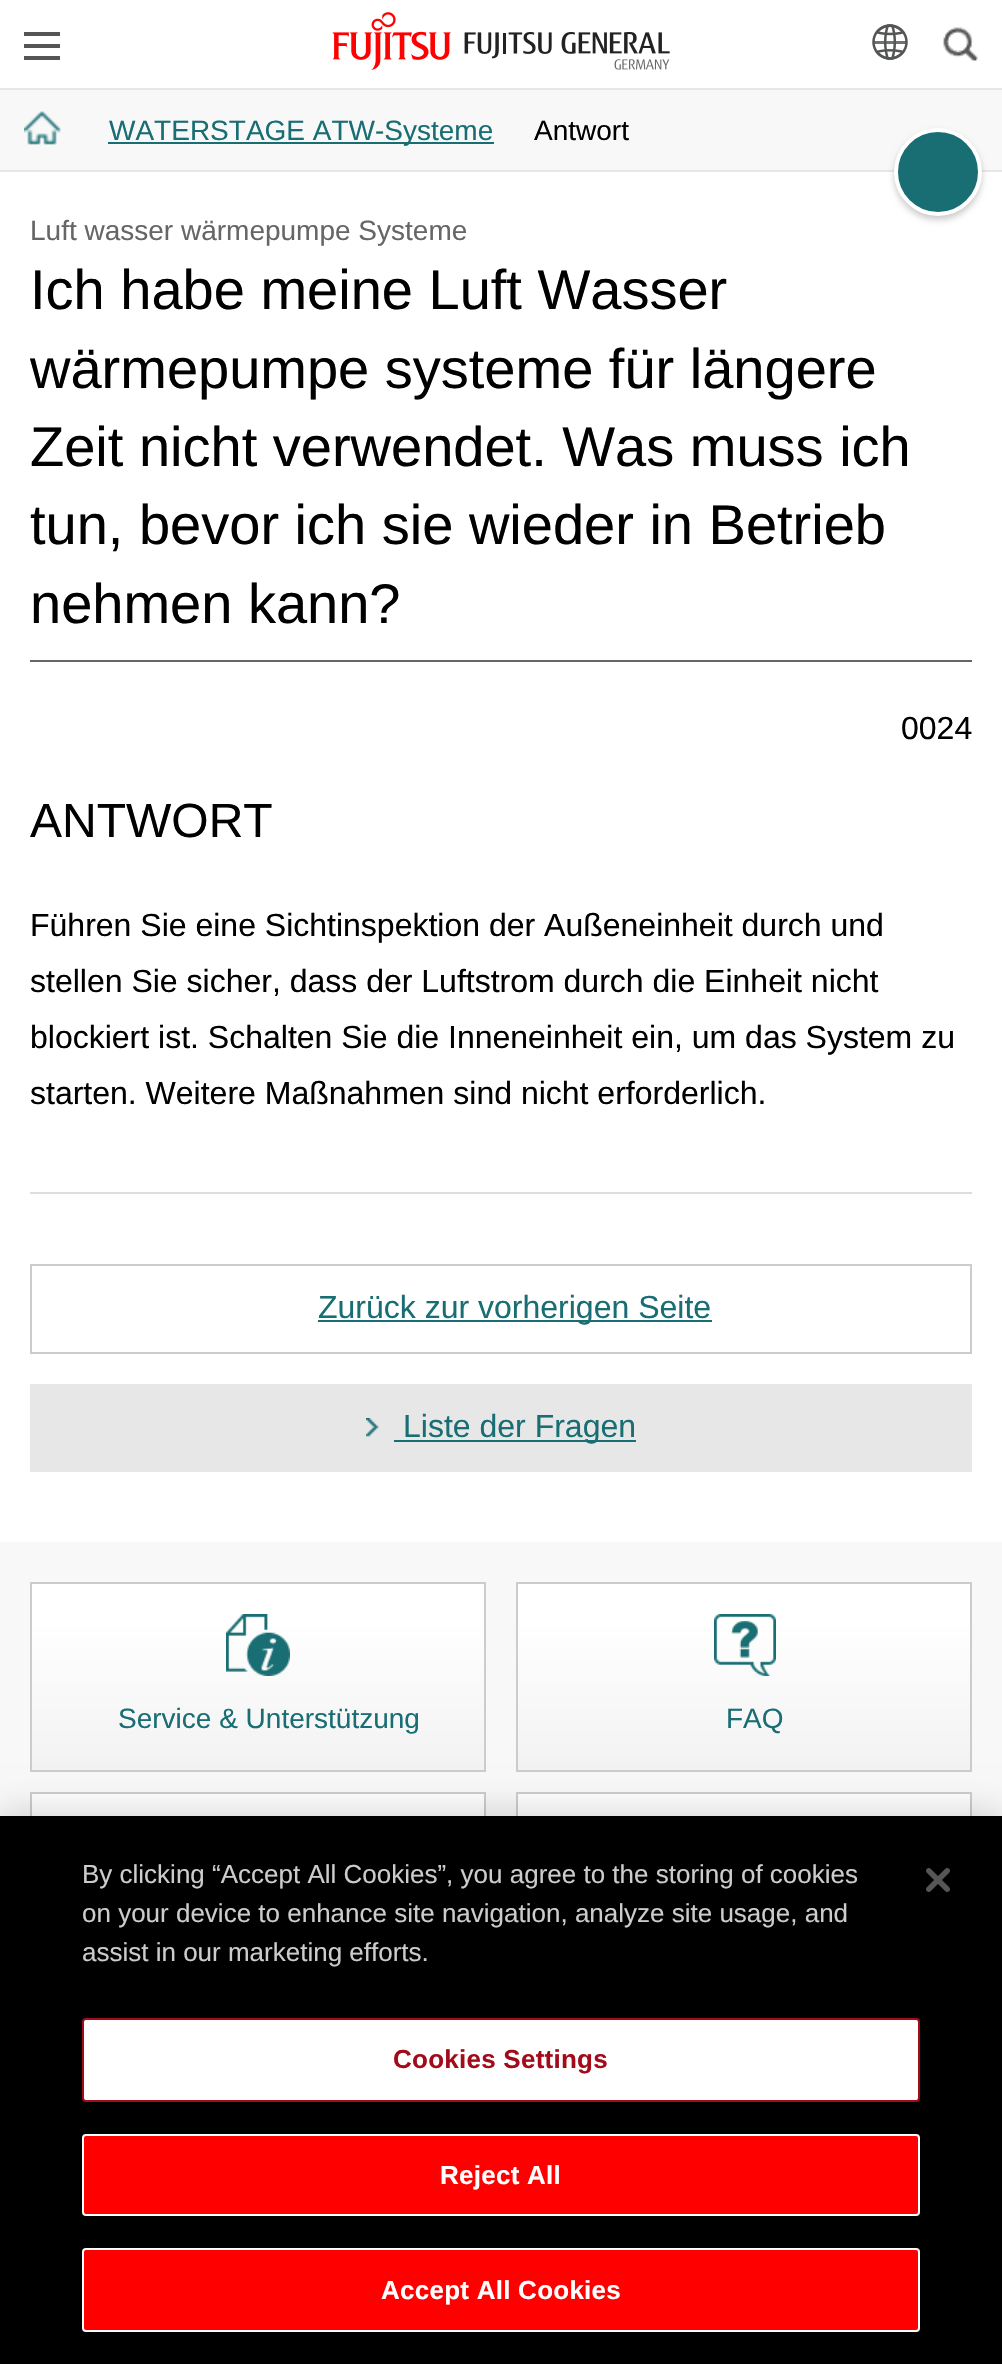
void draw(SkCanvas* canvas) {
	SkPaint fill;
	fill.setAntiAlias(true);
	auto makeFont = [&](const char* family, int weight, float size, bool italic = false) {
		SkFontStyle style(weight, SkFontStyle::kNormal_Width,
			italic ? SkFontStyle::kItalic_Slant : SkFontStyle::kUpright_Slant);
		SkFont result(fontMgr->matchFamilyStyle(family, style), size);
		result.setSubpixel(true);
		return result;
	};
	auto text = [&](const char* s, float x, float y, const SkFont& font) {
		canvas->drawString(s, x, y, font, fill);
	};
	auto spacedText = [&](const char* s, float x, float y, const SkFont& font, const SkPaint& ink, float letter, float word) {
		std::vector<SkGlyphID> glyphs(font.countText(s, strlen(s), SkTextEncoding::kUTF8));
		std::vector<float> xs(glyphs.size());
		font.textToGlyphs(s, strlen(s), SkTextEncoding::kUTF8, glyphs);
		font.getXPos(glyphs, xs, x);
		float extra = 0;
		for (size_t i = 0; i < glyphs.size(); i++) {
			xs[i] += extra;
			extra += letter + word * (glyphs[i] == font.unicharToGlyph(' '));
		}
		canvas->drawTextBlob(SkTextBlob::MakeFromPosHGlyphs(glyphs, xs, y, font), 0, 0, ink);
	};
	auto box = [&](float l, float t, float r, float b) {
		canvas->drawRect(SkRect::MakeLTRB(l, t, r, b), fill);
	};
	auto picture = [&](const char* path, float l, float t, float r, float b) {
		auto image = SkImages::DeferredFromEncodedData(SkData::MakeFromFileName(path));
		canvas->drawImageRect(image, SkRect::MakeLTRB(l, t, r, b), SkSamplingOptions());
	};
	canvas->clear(0xFFFFFFFF);
	fill.setColor(0xFFE7E7E7);
	box(0, 88, 1002, 90);
	fill.setColor(0xFF555555);
	box(24, 44, 60, 48);
	box(24, 32, 60, 36);
	box(24, 56, 60, 60);
	picture("image0.png", 332, 12, 670, 70);
	picture("image1.png", 872, 24, 908, 60);
	picture("image2.png", 943, 27, 978, 61);
	fill.setColor(0xFFF8F8F8);
	box(0, 90, 1002, 170);
	fill.setColor(0xFFE7E7E7);
	box(0, 170, 1002, 172);
	picture("image3.png", 24, 111, 61, 145);
	fill.setColor(0xFF186E73);
	box(108, 142, 494, 144);
	fill.setColor(0x33000000);
	fill.setMaskFilter(SkMaskFilter::MakeBlur(kNormal_SkBlurStyle, 3));
	canvas->drawRoundRect(SkRect::MakeLTRB(894, 132, 982, 220), 44, 44, fill);
	fill.setMaskFilter(nullptr);
	fill.setColor(0xFF186E73);
	canvas->drawCircle(938, 172, 42, fill);
	fill.setStyle(SkPaint::kStroke_Style);
	fill.setStrokeWidth(4);
	fill.setColor(0xFFFFFFFF);
	canvas->drawCircle(938, 172, 42, fill);
	fill.setStyle(SkPaint::kFill_Style);
	fill.setColor(0xFF666666);
	box(30, 660, 972, 662);
	fill.setColor(0xFFDDDDDD);
	box(30, 1192, 972, 1194);
	fill.setStyle(SkPaint::kStroke_Style);
	fill.setStrokeWidth(2);
	fill.setColor(0xFFCCCCCC);
	canvas->drawRect(SkRect::MakeLTRB(31, 1265, 971, 1353), fill);
	fill.setStyle(SkPaint::kFill_Style);
	fill.setColor(0xFF186E73);
	box(318, 1320, 712, 1322);
	fill.setColor(0xFFE7E7E7);
	box(30, 1384, 972, 1472);
	picture("image4.png", 366, 1418, 379, 1437);
	fill.setColor(0xFF186E73);
	box(394, 1440, 636, 1442);
	fill.setColor(0xFFF8F8F8);
	box(0, 1542, 1002, 1816);
	{
		const SkColor colors[] = {0xFFFFFFFF, 0xFFF2F2F2};
		const float stops[] = {0.2f, 1};
		const SkPoint ends[] = {{258, 1582}, {258, 1772}};
		fill.setShader(SkGradientShader::MakeLinear(ends, colors, stops, 2, SkTileMode::kClamp));
		fill.setAlpha(255);
	}
	box(32, 1584, 484, 1770);
	fill.setStyle(SkPaint::kStroke_Style);
	fill.setShader(nullptr);
	fill.setColor(0xFFCCCCCC);
	canvas->drawRect(SkRect::MakeLTRB(31, 1583, 485, 1771), fill);
	picture("image5.png", 226, 1614, 290, 1676);
	fill.setStyle(SkPaint::kFill_Style);
	{
		const SkColor colors[] = {0xFFFFFFFF, 0xFFF2F2F2};
		const float stops[] = {0.2f, 1};
		const SkPoint ends[] = {{744, 1582}, {744, 1772}};
		fill.setShader(SkGradientShader::MakeLinear(ends, colors, stops, 2, SkTileMode::kClamp));
		fill.setAlpha(255);
	}
	box(518, 1584, 970, 1770);
	fill.setStyle(SkPaint::kStroke_Style);
	fill.setShader(nullptr);
	fill.setColor(0xFFCCCCCC);
	canvas->drawRect(SkRect::MakeLTRB(517, 1583, 971, 1771), fill);
	picture("image6.png", 714, 1614, 776, 1676);
	fill.setStyle(SkPaint::kFill_Style);
	{
		const SkColor colors[] = {0xFFFFFFFF, 0xFFF2F2F2};
		const float stops[] = {0.2f, 1};
		const SkPoint ends[] = {{258, 1792}, {258, 1982}};
		fill.setShader(SkGradientShader::MakeLinear(ends, colors, stops, 2, SkTileMode::kClamp));
		fill.setAlpha(255);
	}
	box(32, 1794, 484, 1816);
	fill.setStyle(SkPaint::kStroke_Style);
	fill.setShader(nullptr);
	fill.setColor(0xFFCCCCCC);
	canvas->drawRect(SkRect::MakeLTRB(31, 1793, 485, 1981), fill);
	fill.setStyle(SkPaint::kFill_Style);
	{
		const SkColor colors[] = {0xFFFFFFFF, 0xFFF2F2F2};
		const float stops[] = {0.2f, 1};
		const SkPoint ends[] = {{744, 1792}, {744, 1982}};
		fill.setShader(SkGradientShader::MakeLinear(ends, colors, stops, 2, SkTileMode::kClamp));
		fill.setAlpha(255);
	}
	box(518, 1794, 970, 1816);
	fill.setStyle(SkPaint::kStroke_Style);
	fill.setShader(nullptr);
	fill.setColor(0xFFCCCCCC);
	canvas->drawRect(SkRect::MakeLTRB(517, 1793, 971, 1981), fill);
	fill.setStyle(SkPaint::kFill_Style);
	fill.setColor(0x33000000);
	fill.setMaskFilter(SkMaskFilter::MakeBlur(kNormal_SkBlurStyle, 18));
	canvas->drawRect(SkRect::MakeLTRB(0, 1816, 1002, 2364), fill);
	fill.setMaskFilter(nullptr);
	fill.setColor(0xFF000000);
	box(0, 1816, 1002, 2364);
	fill.setColor(0xFFFFFFFF);
	canvas->drawRoundRect(SkRect::MakeLTRB(83, 2019, 919, 2101), 3, 3, fill);
	fill.setStyle(SkPaint::kStroke_Style);
	fill.setColor(0xFFA30B1A);
	canvas->drawRoundRect(SkRect::MakeLTRB(83, 2019, 919, 2101), 3, 3, fill);
	fill.setStyle(SkPaint::kFill_Style);
	fill.setColor(0xFFFF0000);
	canvas->drawRoundRect(SkRect::MakeLTRB(83, 2135, 919, 2215), 3, 3, fill);
	fill.setStyle(SkPaint::kStroke_Style);
	fill.setColor(0xFFFFFFFF);
	canvas->drawRoundRect(SkRect::MakeLTRB(83, 2135, 919, 2215), 3, 3, fill);
	fill.setStyle(SkPaint::kFill_Style);
	fill.setColor(0xFFFF0000);
	canvas->drawRoundRect(SkRect::MakeLTRB(83, 2249, 919, 2331), 3, 3, fill);
	fill.setStyle(SkPaint::kStroke_Style);
	fill.setColor(0xFFFFFFFF);
	canvas->drawRoundRect(SkRect::MakeLTRB(83, 2249, 919, 2331), 3, 3, fill);
	picture("image7.png", 926, 1868, 950, 1892);
	auto font1 = makeFont("Liberation Sans", 400, 28);
	fill.setStyle(SkPaint::kFill_Style);
	fill.setColor(0xFF186E73);
	text("WATERSTAGE ATW-Systeme", 109, 140, font1);
	fill.setColor(0xFF000000);
	text("Antwort", 534, 140, font1);
	fill.setColor(0xFF666666);
	text("Luft wasser wärmepumpe Systeme", 30, 240, font1);
	auto font2 = makeFont("Liberation Sans", 400, 56);
	fill.setColor(0xFF000000);
	text("Ich habe meine Luft Wasser", 30, 309, font2);
	text("wärmepumpe systeme für längere", 30, 388, font2);
	text("Zeit nicht verwendet. Was muss ich", 30, 466, font2);
	text("tun, bevor ich sie wieder in Betrieb", 30, 544, font2);
	text("nehmen kann?", 30, 623, font2);
	auto font3 = makeFont("Liberation Sans", 400, 32);
	text("0024", 901, 739, font3);
	auto font4 = makeFont("Liberation Sans", 400, 48);
	text("ANTWORT", 30, 837, font4);
	text("Führen Sie eine Sichtinspektion der Außeneinheit durch und", 30, 936, font3);
	text("stellen Sie sicher, dass der Luftstrom durch die Einheit nicht", 30, 992, font3);
	text("blockiert ist. Schalten Sie die Inneneinheit ein, um das System zu", 30, 1048, font3);
	text("starten. Weitere Maßnahmen sind nicht erforderlich.", 30, 1104, font3);
	fill.setColor(0xFF186E73);
	text("Zurück zur vorherigen Seite", 318, 1318, font3);
	text("Liste der Fragen", 403, 1437, font3);
	text("Service & Unterstützung", 118, 1728, font1);
	text("FAQ", 726, 1728, font1);
	auto font5 = makeFont("Liberation Sans", 400, 26);
	fill.setColor(0xFFCCCCCC);
	text("By clicking “Accept All Cookies”, you agree to the storing of cookies", 82, 1883, font5);
	text("on your device to enhance site navigation, analyze site usage, and", 82, 1922, font5);
	text("assist in our marketing efforts.", 82, 1961, font5);
	auto font6 = makeFont("Liberation Sans", 700, 26);
	fill.setColor(0xFFA30B1A);
	spacedText("Cookies Settings", 393, 2068, font6, fill, 0.25f, 0);
	fill.setColor(0xFFFFFFFF);
	spacedText("Reject All", 440, 2184, font6, fill, 0.25f, 0);
	spacedText("Accept All Cookies", 381, 2299, font6, fill, 0.25f, 0);
}
